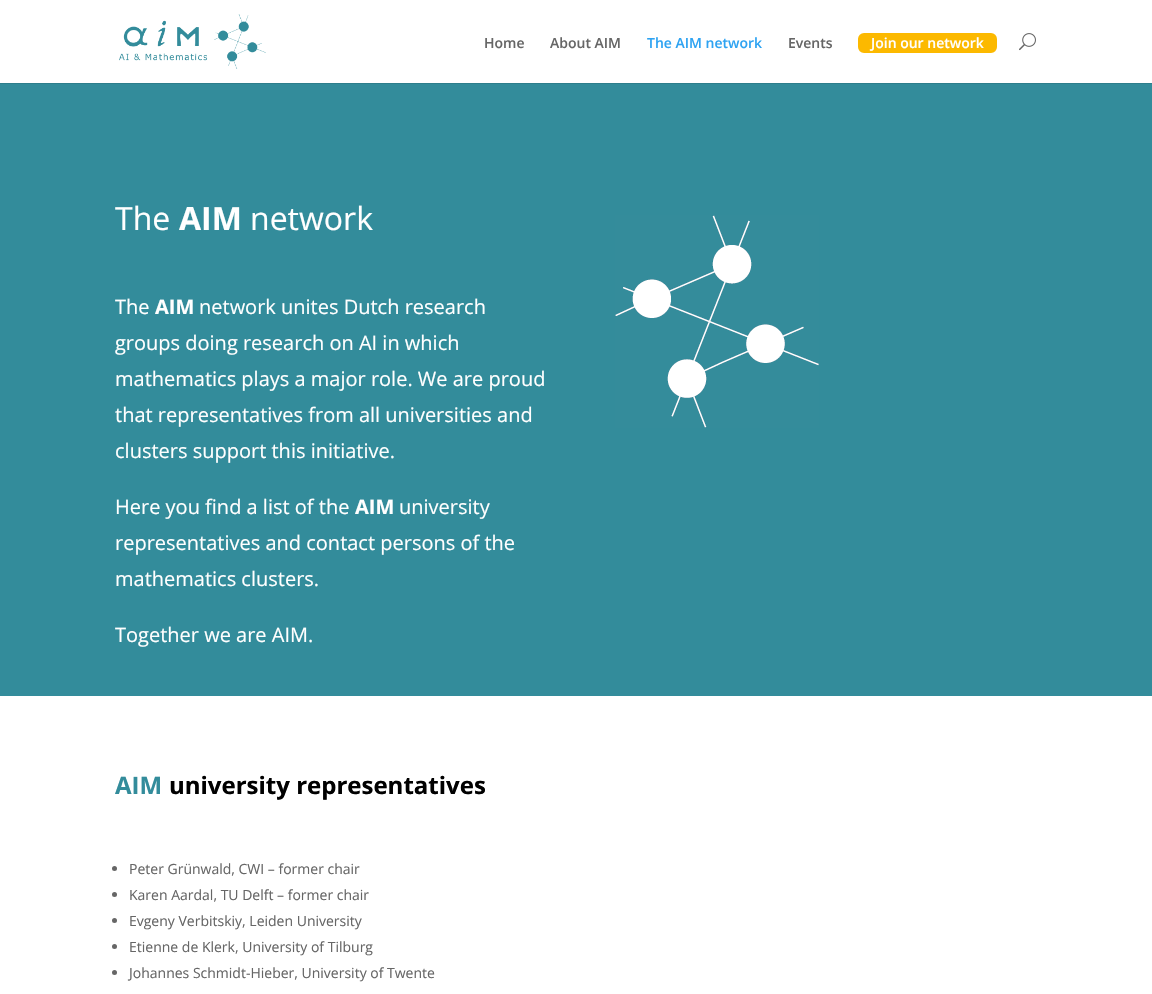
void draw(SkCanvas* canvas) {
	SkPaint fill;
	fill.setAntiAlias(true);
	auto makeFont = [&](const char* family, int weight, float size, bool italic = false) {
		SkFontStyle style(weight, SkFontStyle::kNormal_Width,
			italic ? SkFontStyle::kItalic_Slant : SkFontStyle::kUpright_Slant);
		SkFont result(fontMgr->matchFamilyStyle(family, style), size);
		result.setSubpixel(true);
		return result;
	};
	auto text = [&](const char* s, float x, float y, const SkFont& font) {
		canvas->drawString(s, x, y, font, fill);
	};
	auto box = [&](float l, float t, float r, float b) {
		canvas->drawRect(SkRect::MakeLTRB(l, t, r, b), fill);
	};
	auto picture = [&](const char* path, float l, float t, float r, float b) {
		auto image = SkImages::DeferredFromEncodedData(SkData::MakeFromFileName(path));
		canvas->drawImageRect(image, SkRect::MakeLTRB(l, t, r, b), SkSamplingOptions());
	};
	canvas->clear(0xFFFFFFFF);
	fill.setColor(0xFF2E7E8C);
	box(0, 83, 1152, 84);
	picture("image0.png", 119, 14, 266, 69);
	fill.setColor(0xFFFCB900);
	canvas->drawRoundRect(SkRect::MakeLTRB(859.5f, 34.5f, 995.5f, 51.5f), 4.5f, 4.5f, fill);
	fill.setStyle(SkPaint::kStroke_Style);
	fill.setStrokeWidth(3);
	canvas->drawRoundRect(SkRect::MakeLTRB(859.5f, 34.5f, 995.5f, 51.5f), 4.5f, 4.5f, fill);
	picture("image1.png", 1019, 33, 1036, 51);
	fill.setStyle(SkPaint::kFill_Style);
	fill.setColor(0xFF338C9B);
	box(0, 84, 1152, 696);
	picture("image2.png", 615, 215, 819, 428);
	fill.setColor(0xFF666666);
	canvas->drawCircle(114.5f, 868.5f, 2.5f, fill);
	canvas->drawCircle(114.5f, 894.5f, 2.5f, fill);
	canvas->drawCircle(114.5f, 920.5f, 2.5f, fill);
	canvas->drawCircle(114.5f, 946.5f, 2.5f, fill);
	canvas->drawCircle(114.5f, 972.5f, 2.5f, fill);
	auto font1 = makeFont("Open Sans", 600, 14);
	text("Home", 484, 48, font1);
	text("About AIM", 550, 48, font1);
	fill.setColor(0xFF2EA3F2);
	text("The AIM network", 647, 48, font1);
	fill.setColor(0xFF666666);
	text("Events", 788, 48, font1);
	fill.setColor(0xFFFFFFFF);
	text("Join our network", 871, 48, font1);
	auto font2 = makeFont("Open Sans", 400, 32);
	text("The", 115, 230, font2);
	auto font3 = makeFont("Open Sans", 700, 32);
	text("AIM", 179, 230, font3);
	text("network", 250, 230, font2);
	auto font4 = makeFont("Open Sans", 400, 20);
	text("The", 115, 314, font4);
	auto font5 = makeFont("Open Sans", 700, 20);
	text("AIM", 155, 314, font5);
	text("network unites Dutch research", 199, 314, font4);
	text("groups doing research on AI in which", 115, 350, font4);
	text("mathematics plays a major role. We are proud", 115, 386, font4);
	text("that representatives from all universities and", 115, 422, font4);
	text("clusters support this initiative.", 115, 458, font4);
	text("Here you find a list of the", 115, 514, font4);
	text("AIM", 355, 514, font5);
	text("university", 399, 514, font4);
	text("representatives and contact persons of the", 115, 550, font4);
	text("mathematics clusters.", 115, 586, font4);
	text("Together we are AIM.", 115, 642, font4);
	auto font6 = makeFont("Open Sans", 700, 24);
	fill.setColor(0xFF338C9B);
	text("AIM", 115, 794, font6);
	fill.setColor(0xFF000000);
	text("university representatives", 169, 794, font6);
	auto font7 = makeFont("Open Sans", 400, 14);
	fill.setColor(0xFF666666);
	text("Peter Grünwald, CWI – former chair", 129, 874, font7);
	text("Karen Aardal, TU Delft – former chair", 129, 900, font7);
	text("Evgeny Verbitskiy, Leiden University", 129, 926, font7);
	text("Etienne de Klerk, University of Tilburg", 129, 952, font7);
	text("Johannes Schmidt-Hieber, University of Twente", 129, 978, font7);
}
